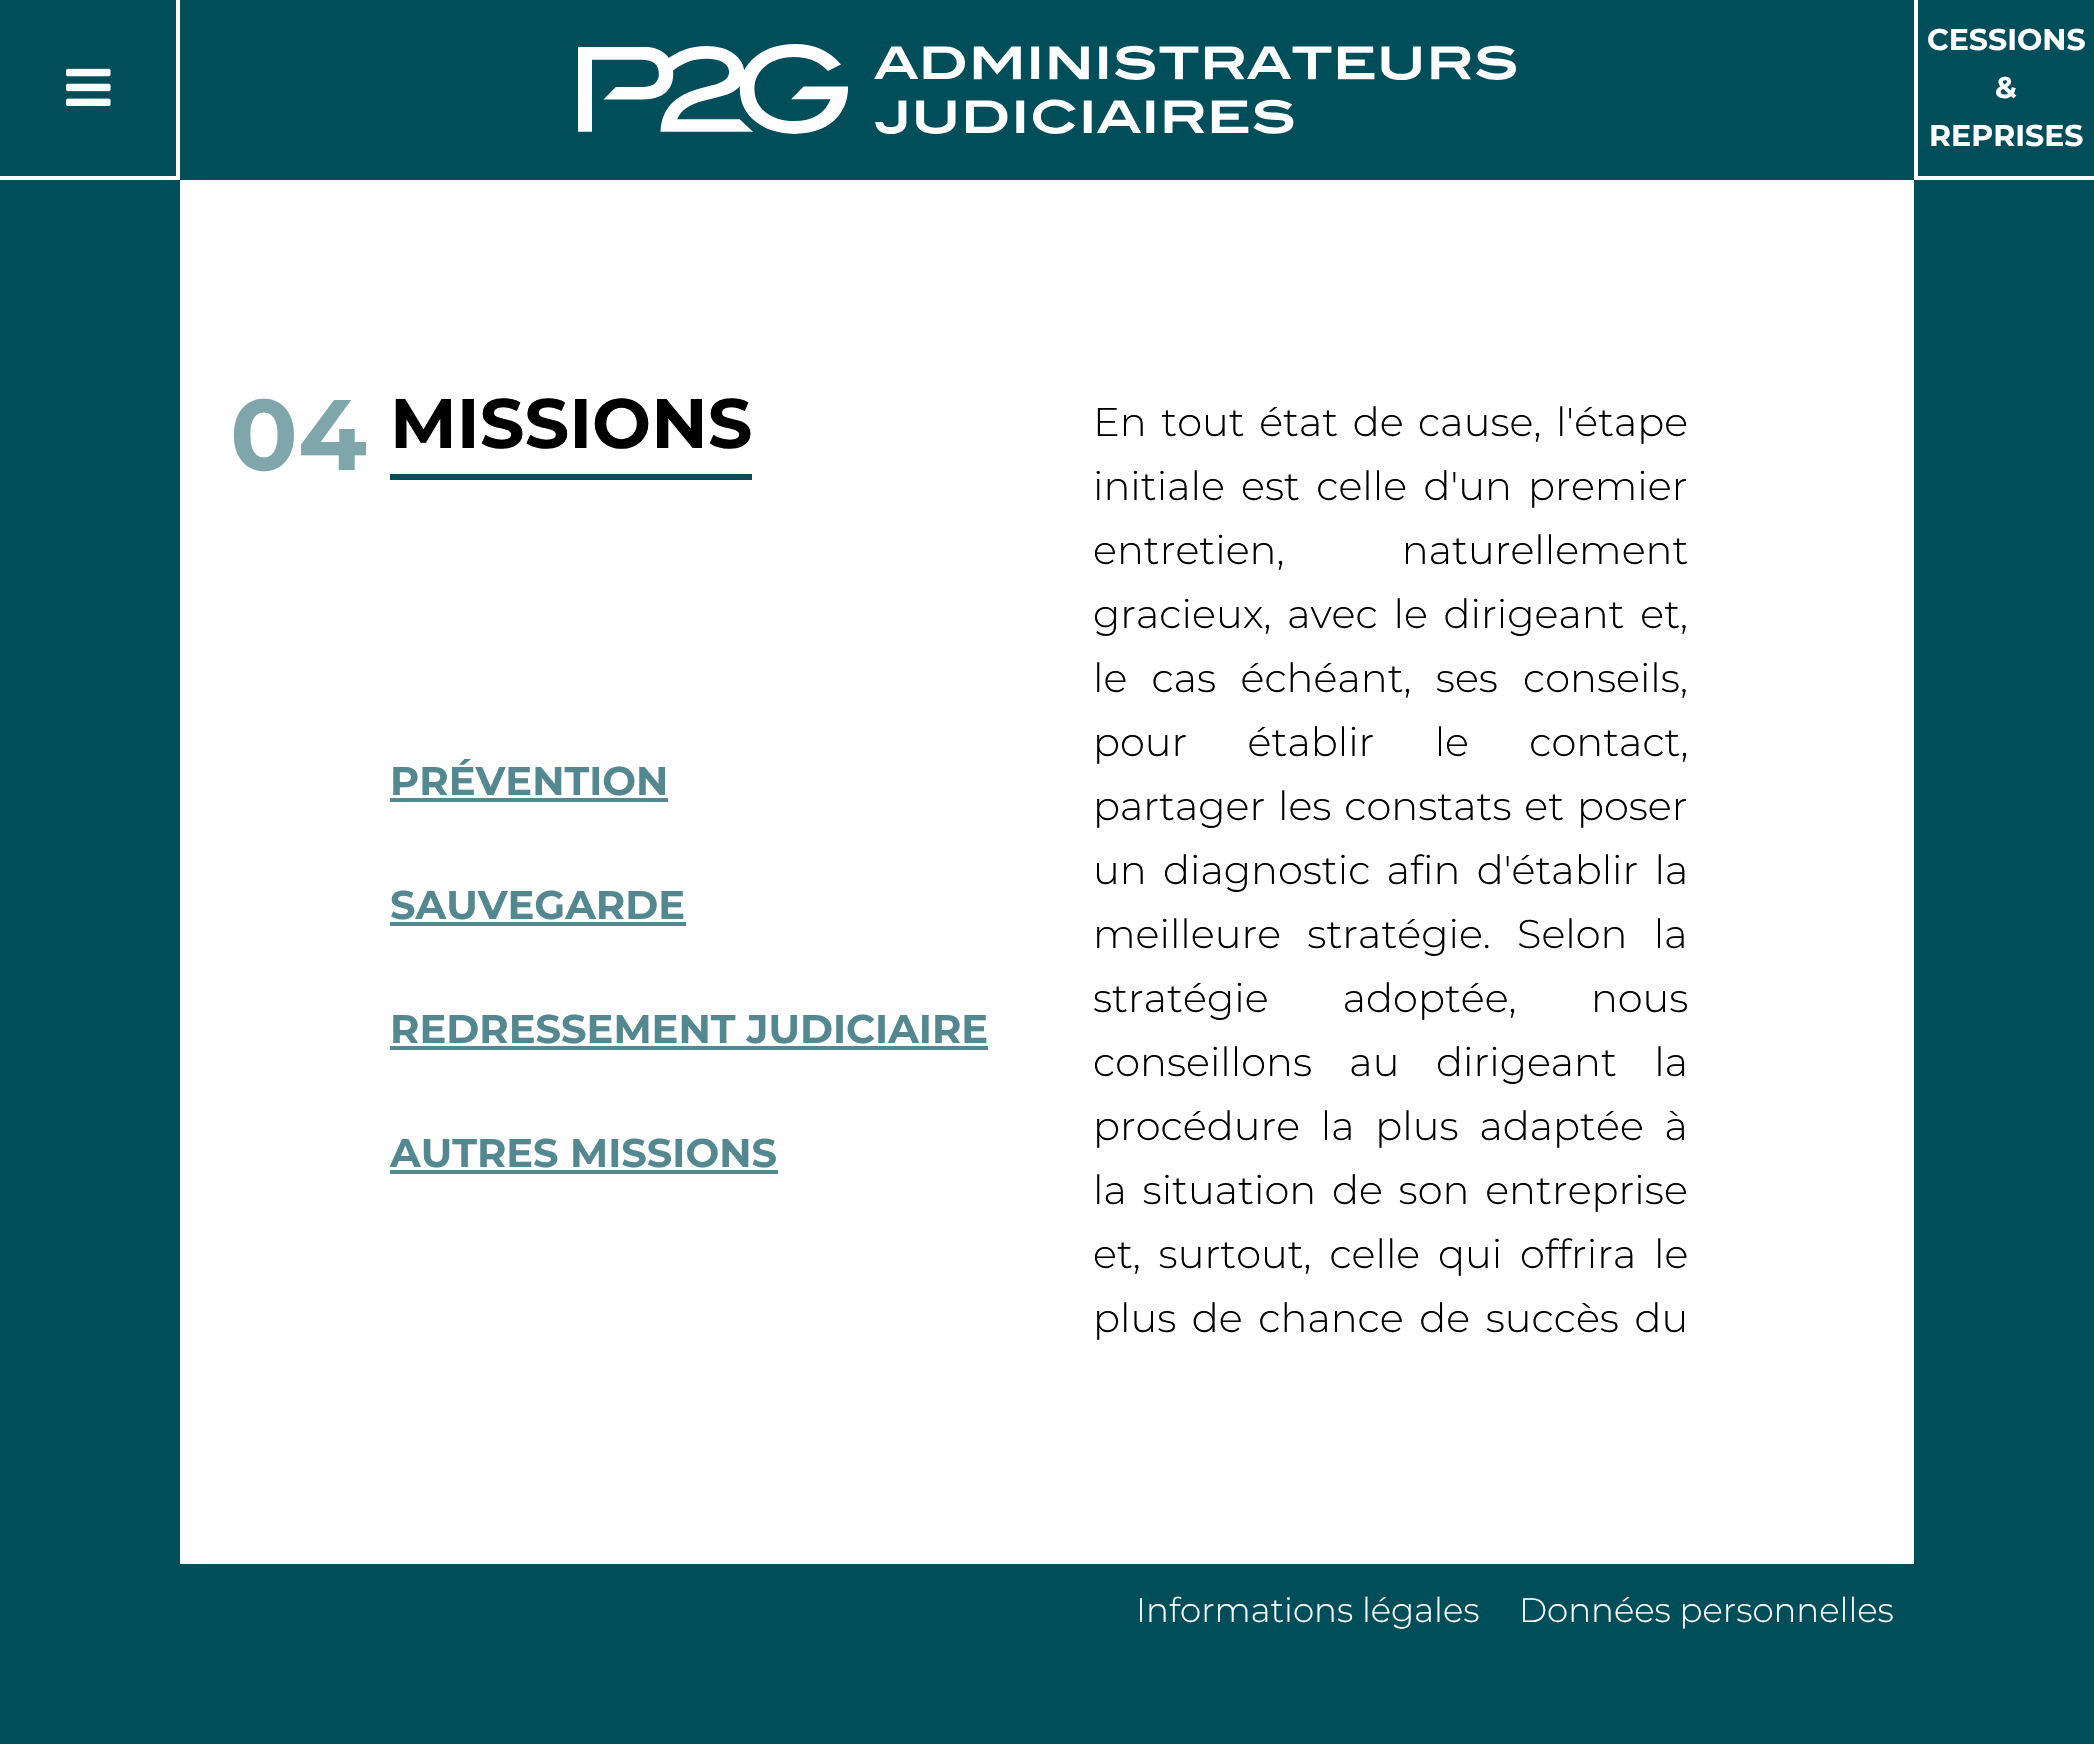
void draw(SkCanvas* canvas) {
	SkPaint fill;
	fill.setAntiAlias(true);
	auto makeFont = [&](const char* family, int weight, float size, bool italic = false) {
		SkFontStyle style(weight, SkFontStyle::kNormal_Width,
			italic ? SkFontStyle::kItalic_Slant : SkFontStyle::kUpright_Slant);
		SkFont result(fontMgr->matchFamilyStyle(family, style), size);
		result.setSubpixel(true);
		return result;
	};
	auto text = [&](const char* s, float x, float y, const SkFont& font) {
		canvas->drawString(s, x, y, font, fill);
	};
	auto spacedText = [&](const char* s, float x, float y, const SkFont& font, const SkPaint& ink, float letter, float word) {
		std::vector<SkGlyphID> glyphs(font.countText(s, strlen(s), SkTextEncoding::kUTF8));
		std::vector<float> xs(glyphs.size());
		font.textToGlyphs(s, strlen(s), SkTextEncoding::kUTF8, glyphs);
		font.getXPos(glyphs, xs, x);
		float extra = 0;
		for (size_t i = 0; i < glyphs.size(); i++) {
			xs[i] += extra;
			extra += letter + word * (glyphs[i] == font.unicharToGlyph(' '));
		}
		canvas->drawTextBlob(SkTextBlob::MakeFromPosHGlyphs(glyphs, xs, y, font), 0, 0, ink);
	};
	auto box = [&](float l, float t, float r, float b) {
		canvas->drawRect(SkRect::MakeLTRB(l, t, r, b), fill);
	};
	auto picture = [&](const char* path, float l, float t, float r, float b) {
		auto image = SkImages::DeferredFromEncodedData(SkData::MakeFromFileName(path));
		canvas->drawImageRect(image, SkRect::MakeLTRB(l, t, r, b), SkSamplingOptions());
	};
	canvas->clear(0xFFFFFFFF);
	fill.setColor(0xFF004E5A);
	box(0, 0, 2094, 180);
	fill.setColor(0xFFFFFFFF);
	box(176, 0, 180, 180);
	box(0, 176, 180, 180);
	picture("image0.png", 66, 68, 111, 106);
	picture("image1.png", 578, 44, 1516, 134);
	box(1914, 176, 2094, 180);
	box(1914, 0, 1918, 180);
	fill.setColor(0xFF004E5A);
	box(0, 180, 180, 1564);
	box(390, 474, 752, 480);
	fill.setColor(0xFF548890);
	box(390, 798, 668, 802);
	box(390, 922, 686, 926);
	box(390, 1046, 988, 1050);
	box(390, 1170, 778, 1174);
	fill.setColor(0xFF004E5A);
	box(1914, 180, 2094, 1564);
	box(0, 1564, 2094, 1744);
	auto font1 = makeFont("Montserrat", 700, 30);
	fill.setColor(0xFFFFFFFF);
	text("CESSIONS", 1927, 50, font1);
	text("&", 1995, 98, font1);
	text("REPRISES", 1929, 146, font1);
	auto font2 = makeFont("Montserrat", 700, 100);
	fill.setColor(0xFF7FA6AB);
	text("04", 230, 470, font2);
	auto font3 = makeFont("Montserrat", 700, 70);
	fill.setColor(0xFF000000);
	text("MISSIONS", 390, 448, font3);
	auto font4 = makeFont("Montserrat", 700, 40);
	fill.setColor(0xFF548890);
	text("PRÉVENTION", 390, 795, font4);
	text("SAUVEGARDE", 390, 919, font4);
	text("REDRESSEMENT JUDICIAIRE", 390, 1043, font4);
	text("AUTRES MISSIONS", 390, 1167, font4);
	auto font5 = makeFont("Montserrat", 300, 40);
	fill.setColor(0xFF000000);
	spacedText("En tout état de cause, l'étape", 1093, 436, font5, fill, 0, 4.25f);
	spacedText("initiale est celle d'un premier", 1093, 500, font5, fill, 0, 6);
	spacedText("entretien, naturellement", 1093, 564, font5, fill, 0, 107);
	spacedText("gracieux, avec le dirigeant et,", 1093, 628, font5, fill, 0, 5.5f);
	spacedText("le cas échéant, ses", 1093, 692, font5, fill, 0, 14);
	text("conseils,", 1523, 692, font5);
	spacedText("pour établir le contact,", 1093, 756, font5, fill, 0, 50);
	spacedText("partager les constats et poser", 1093, 820, font5, fill, 0, 2.5f);
	spacedText("un diagnostic afin d'établir la", 1093, 884, font5, fill, 0, 6);
	spacedText("meilleure stratégie. Selon la", 1093, 948, font5, fill, 0, 16);
	spacedText("stratégie adoptée, nous", 1093, 1012, font5, fill, 0, 64);
	spacedText("conseillons au", 1093, 1076, font5, fill, 0, 27);
	spacedText("dirigeant la", 1436, 1076, font5, fill, 0, 27);
	spacedText("procédure la plus adaptée à", 1093, 1140, font5, fill, 0, 10.5f);
	spacedText("la situation de son entreprise", 1093, 1204, font5, fill, 0, 5.5f);
	spacedText("et, surtout, celle qui offrira le", 1093, 1268, font5, fill, 0, 7.5f);
	spacedText("plus de chance de succès du", 1093, 1332, font5, fill, 0, 5.25f);
	auto font6 = makeFont("Montserrat", 300, 34);
	fill.setColor(0xFFFFFFFF);
	text("Informations légales", 1136, 1622, font6);
	text("Données personnelles", 1519, 1622, font6);
}
